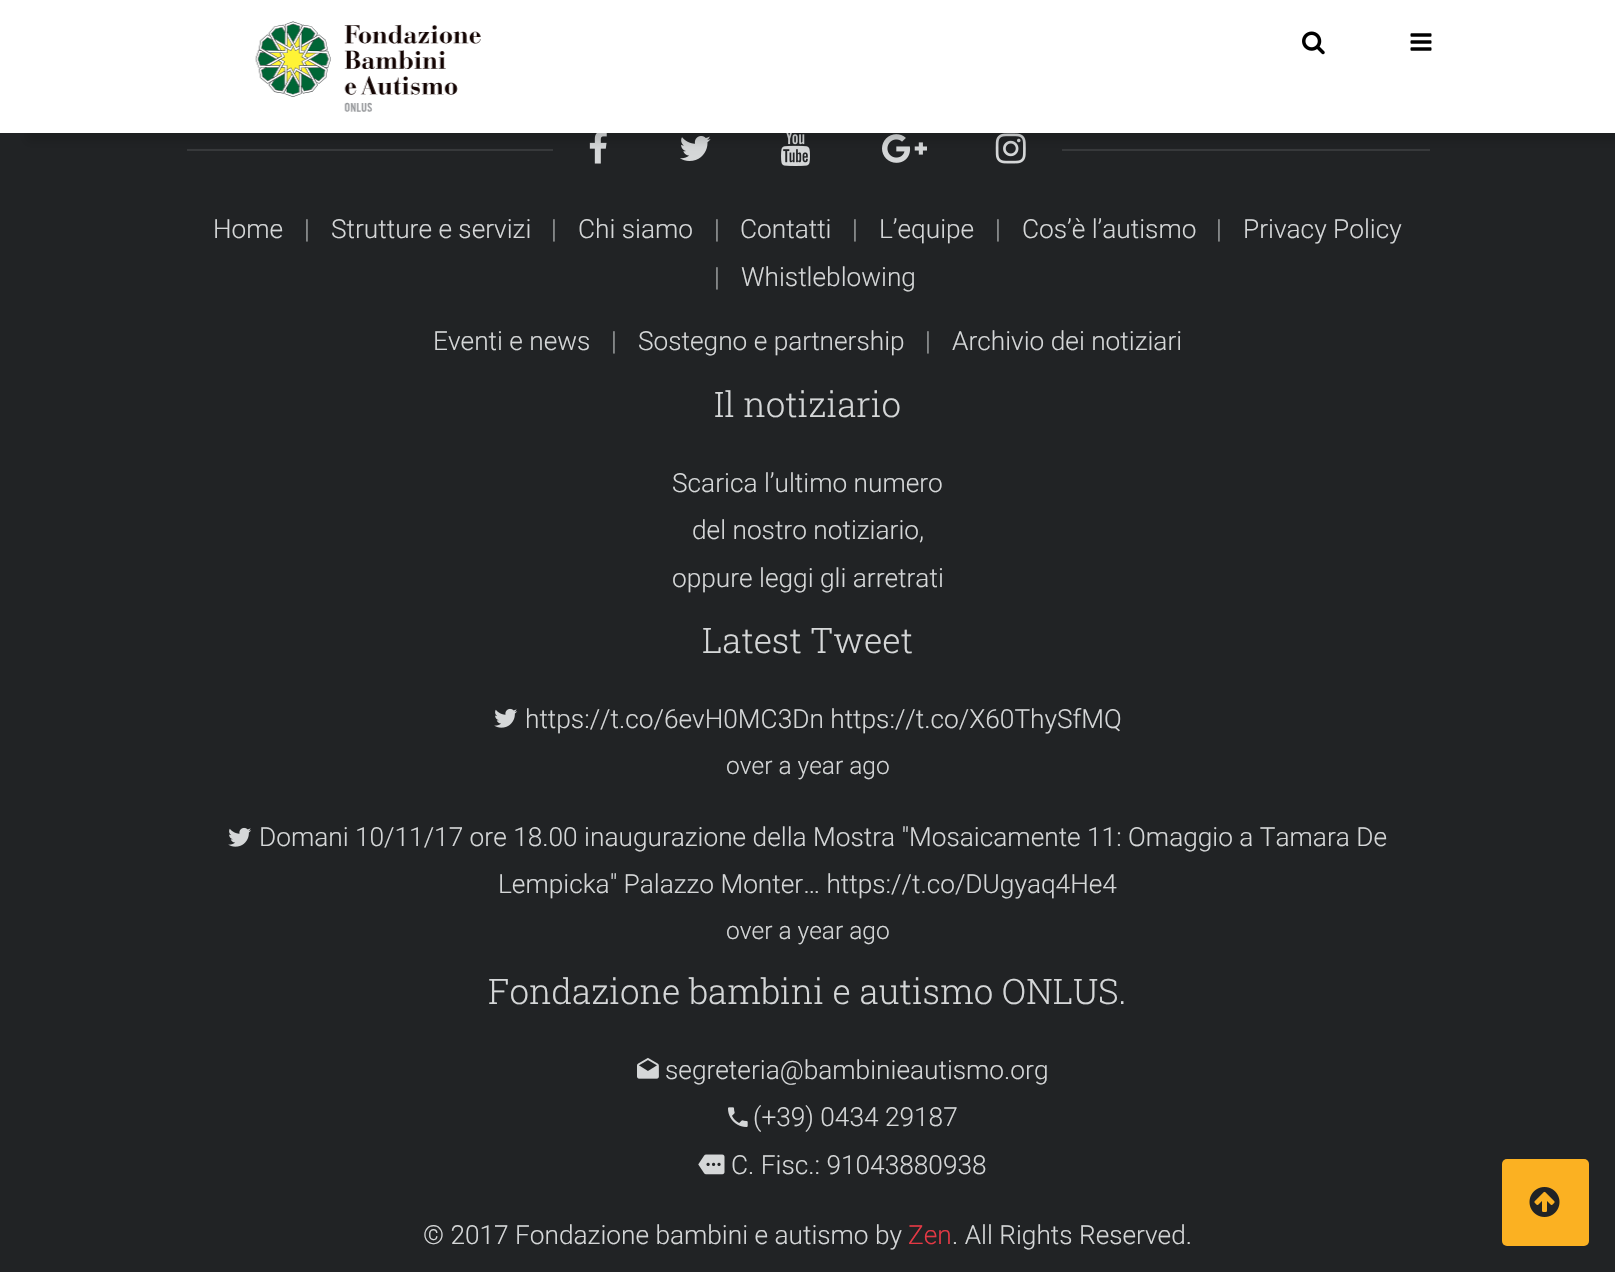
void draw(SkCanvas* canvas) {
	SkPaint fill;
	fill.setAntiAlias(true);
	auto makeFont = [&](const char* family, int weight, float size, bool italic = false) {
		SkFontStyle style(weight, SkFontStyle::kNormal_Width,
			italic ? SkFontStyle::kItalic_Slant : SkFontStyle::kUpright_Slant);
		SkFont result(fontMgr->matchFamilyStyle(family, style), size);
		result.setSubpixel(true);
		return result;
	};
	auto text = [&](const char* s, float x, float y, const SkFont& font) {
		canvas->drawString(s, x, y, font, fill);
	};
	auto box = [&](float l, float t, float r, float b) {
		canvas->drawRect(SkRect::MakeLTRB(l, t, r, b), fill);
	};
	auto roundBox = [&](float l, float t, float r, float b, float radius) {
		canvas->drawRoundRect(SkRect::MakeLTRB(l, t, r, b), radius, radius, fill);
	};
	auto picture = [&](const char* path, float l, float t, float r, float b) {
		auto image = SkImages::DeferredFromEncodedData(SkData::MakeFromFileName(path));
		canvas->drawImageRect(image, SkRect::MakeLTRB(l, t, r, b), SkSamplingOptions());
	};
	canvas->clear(0xFF212325);
	fill.setColor(0xFF37393B);
	box(187, 149, 1430, 151);
	fill.setColor(0xFF212325);
	box(553, 149, 1062, 151);
	picture("image3.png", 589, 133, 607, 164);
	picture("image4.png", 680, 136, 711, 161);
	picture("image5.png", 781, 133, 810, 166);
	picture("image6.png", 882, 134, 927, 163);
	picture("image7.png", 995, 133, 1026, 164);
	fill.setColor(0x21000000);
	fill.setMaskFilter(SkMaskFilter::MakeBlur(kNormal_SkBlurStyle, 4.5f));
	canvas->drawRect(SkRect::MakeLTRB(26, -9, 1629, 142), fill);
	fill.setMaskFilter(nullptr);
	fill.setColor(0xFFFFFFFF);
	box(0, 0, 1615, 133);
	picture("image0.png", 255, 21, 481, 112);
	picture("image1.png", 1302, 31, 1325, 55);
	picture("image2.png", 1410, 33, 1432, 51);
	picture("image8.png", 494, 708, 518, 728);
	picture("image9.png", 228, 827, 252, 847);
	picture("image10.png", 637, 1057, 659, 1079);
	picture("image11.png", 728, 1107, 748, 1127);
	picture("image12.png", 698, 1154, 725, 1175);
	fill.setColor(0xFFFBB122);
	roundBox(1502, 1159, 1589, 1246, 5);
	picture("image13.png", 1529, 1187, 1560, 1217);
	auto font1 = makeFont("Roboto", 300, 26.25f);
	fill.setColor(0xFFD5D7D8);
	text("Home", 213, 238, font1);
	fill.setColor(0xFF9FA2A3);
	text("|", 304, 238, font1);
	fill.setColor(0xFFD5D7D8);
	text("Strutture e servizi", 331, 238, font1);
	fill.setColor(0xFF9FA2A3);
	text("|", 551, 238, font1);
	fill.setColor(0xFFD5D7D8);
	text("Chi siamo", 578, 238, font1);
	fill.setColor(0xFF9FA2A3);
	text("|", 714, 238, font1);
	fill.setColor(0xFFD5D7D8);
	text("Contatti", 740, 238, font1);
	fill.setColor(0xFF9FA2A3);
	text("|", 852, 238, font1);
	fill.setColor(0xFFD5D7D8);
	text("L’equipe", 879, 238, font1);
	fill.setColor(0xFF9FA2A3);
	text("|", 995, 238, font1);
	fill.setColor(0xFFD5D7D8);
	text("Cos’è l’autismo", 1022, 238, font1);
	fill.setColor(0xFF9FA2A3);
	text("|", 1216, 238, font1);
	fill.setColor(0xFFD5D7D8);
	text("Privacy Policy", 1243, 238, font1);
	fill.setColor(0xFF9FA2A3);
	text("|", 714, 286, font1);
	fill.setColor(0xFFD5D7D8);
	text("Whistleblowing", 741, 286, font1);
	text("Eventi e news", 433, 350, font1);
	fill.setColor(0xFF9FA2A3);
	text("|", 611, 350, font1);
	fill.setColor(0xFFD5D7D8);
	text("Sostegno e partnership", 638, 350, font1);
	fill.setColor(0xFF9FA2A3);
	text("|", 925, 350, font1);
	fill.setColor(0xFFD5D7D8);
	text("Archivio dei notiziari", 952, 350, font1);
	auto font2 = makeFont("Roboto Slab", 300, 35);
	text("Il notiziario", 714, 417, font2);
	text("Scarica l’ultimo numero", 672, 492, font1);
	text("del nostro notiziario,", 692, 539, font1);
	text("oppure leggi gli arretrati", 672, 587, font1);
	text("Latest Tweet", 702, 653, font2);
	text("https://t.co/6evH0MC3Dn https://t.co/X60ThySfMQ", 525, 728, font1);
	auto font3 = makeFont("Roboto", 300, 24.5f);
	text("over a year ago", 726, 774, font3);
	text("Domani 10/11/17 ore 18.00 inaugurazione della Mostra \"Mosaicamente 11: Omaggio a Tamara De", 259, 846, font1);
	text("Lempicka\" Palazzo Monter… https://t.co/DUgyaq4He4", 498, 893, font1);
	text("over a year ago", 726, 939, font3);
	text("Fondazione bambini e autismo ONLUS.", 488, 1004, font2);
	text("segreteria@bambinieautismo.org", 665, 1079, font1);
	text("(+39) 0434 29187", 753, 1126, font1);
	text("C. Fisc.: 91043880938", 731, 1174, font1);
	text("© 2017 Fondazione bambini e autismo by", 423, 1244, font1);
	fill.setColor(0xFFE33844);
	text("Zen", 908, 1244, font1);
	fill.setColor(0xFFD5D7D8);
	text(". All Rights Reserved.", 952, 1244, font1);
}
